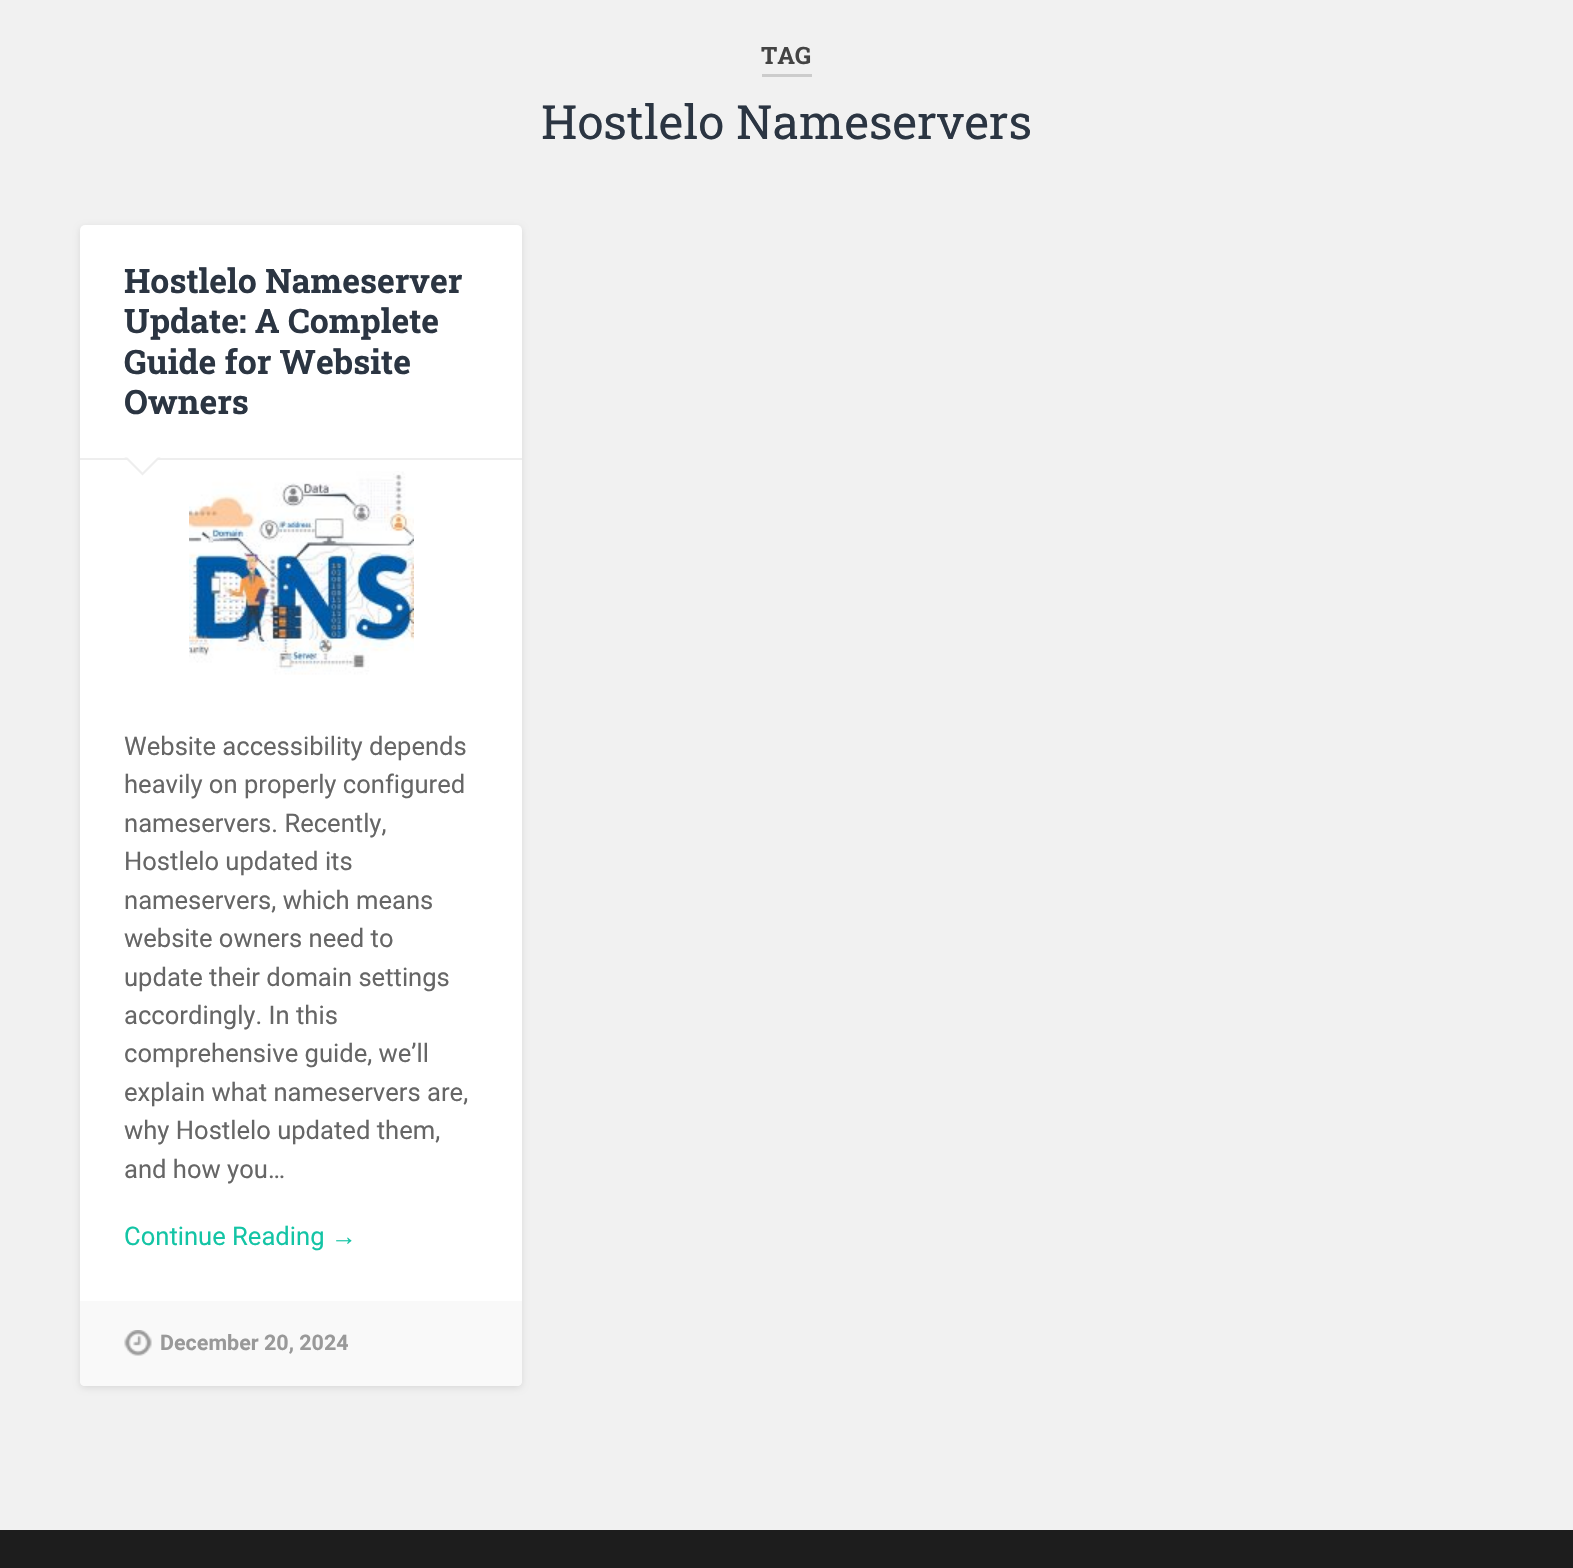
void draw(SkCanvas* canvas) {
	SkPaint fill;
	fill.setAntiAlias(true);
	auto makeFont = [&](const char* family, int weight, float size, bool italic = false) {
		SkFontStyle style(weight, SkFontStyle::kNormal_Width,
			italic ? SkFontStyle::kItalic_Slant : SkFontStyle::kUpright_Slant);
		SkFont result(fontMgr->matchFamilyStyle(family, style), size);
		result.setSubpixel(true);
		return result;
	};
	auto text = [&](const char* s, float x, float y, const SkFont& font) {
		canvas->drawString(s, x, y, font, fill);
	};
	auto box = [&](float l, float t, float r, float b) {
		canvas->drawRect(SkRect::MakeLTRB(l, t, r, b), fill);
	};
	auto roundBox = [&](float l, float t, float r, float b, float radius) {
		canvas->drawRoundRect(SkRect::MakeLTRB(l, t, r, b), radius, radius, fill);
	};
	auto picture = [&](const char* path, float l, float t, float r, float b) {
		auto image = SkImages::DeferredFromEncodedData(SkData::MakeFromFileName(path));
		canvas->drawImageRect(image, SkRect::MakeLTRB(l, t, r, b), SkSamplingOptions());
	};
	canvas->clear(0xFFF1F1F1);
	fill.setColor(0xFFCCCCCC);
	box(762, 74, 812, 77);
	fill.setColor(0x1A000000);
	fill.setMaskFilter(SkMaskFilter::MakeBlur(kNormal_SkBlurStyle, 3));
	canvas->drawRoundRect(SkRect::MakeLTRB(80, 227, 522, 1388), 5, 5, fill);
	fill.setMaskFilter(nullptr);
	fill.setColor(0xFFFFFFFF);
	roundBox(80, 225, 522, 1386, 5);
	fill.setColor(0xFFEEEEEE);
	box(80, 458, 522, 460);
	canvas->drawPath(SkPathBuilder().moveTo(124.5f, 457.5f).lineTo(160.5f, 457.5f).lineTo(142.5f, 475.5f).close().detach(), fill);
	fill.setColor(0xFFFFFFFF);
	canvas->drawPath(SkPathBuilder().moveTo(126, 456).lineTo(159, 456).lineTo(142.5f, 472.5f).close().detach(), fill);
	picture("image0.png", 189, 471, 414, 675);
	fill.setColor(0xFFF9F9F9);
	canvas->drawPath(SkPathBuilder().moveTo(80, 1301).lineTo(522, 1301).lineTo(522, 1381).cubicTo(522, 1384, 520, 1386, 517, 1386).lineTo(85, 1386).cubicTo(82, 1386, 80, 1384, 80, 1381).close().detach(), fill);
	picture("image1.png", 124, 1330, 152, 1356);
	fill.setColor(0xFF1D1D1D);
	box(0, 1530, 1573, 1568);
	auto font1 = makeFont("Roboto Slab", 700, 24);
	fill.setColor(0xFF444444);
	text("TAG", 761, 64, font1);
	auto font2 = makeFont("Roboto Slab", 400, 47.25f);
	fill.setColor(0xFF2B3542);
	text("Hostlelo Nameservers", 541, 139, font2);
	auto font3 = makeFont("Roboto Slab", 700, 33.75f);
	text("Hostlelo Nameserver", 124, 293, font3);
	text("Update: A Complete", 124, 333, font3);
	text("Guide for Website", 124, 374, font3);
	text("Owners", 124, 414, font3);
	auto font4 = makeFont("Roboto", 400, 25.6f);
	fill.setColor(0xFF666666);
	text("Website accessibility depends", 124, 755, font4);
	text("heavily on properly configured", 124, 793, font4);
	text("nameservers. Recently,", 124, 832, font4);
	text("Hostlelo updated its", 124, 870, font4);
	text("nameservers, which means", 124, 909, font4);
	text("website owners need to", 124, 947, font4);
	text("update their domain settings", 124, 986, font4);
	text("accordingly. In this", 124, 1024, font4);
	text("comprehensive guide, we’ll", 124, 1062, font4);
	text("explain what nameservers are,", 124, 1101, font4);
	text("why Hostlelo updated them,", 124, 1139, font4);
	text("and how you…", 124, 1178, font4);
	fill.setColor(0xFF13C4A5);
	text("Continue Reading", 124, 1245, font4);
	auto font5 = makeFont("Liberation Sans", 400, 25.6f);
	text("→", 331, 1245, font5);
	auto font6 = makeFont("Roboto", 700, 21.5f);
	fill.setColor(0xFF999999);
	text("December 20, 2024", 160, 1350, font6);
}
